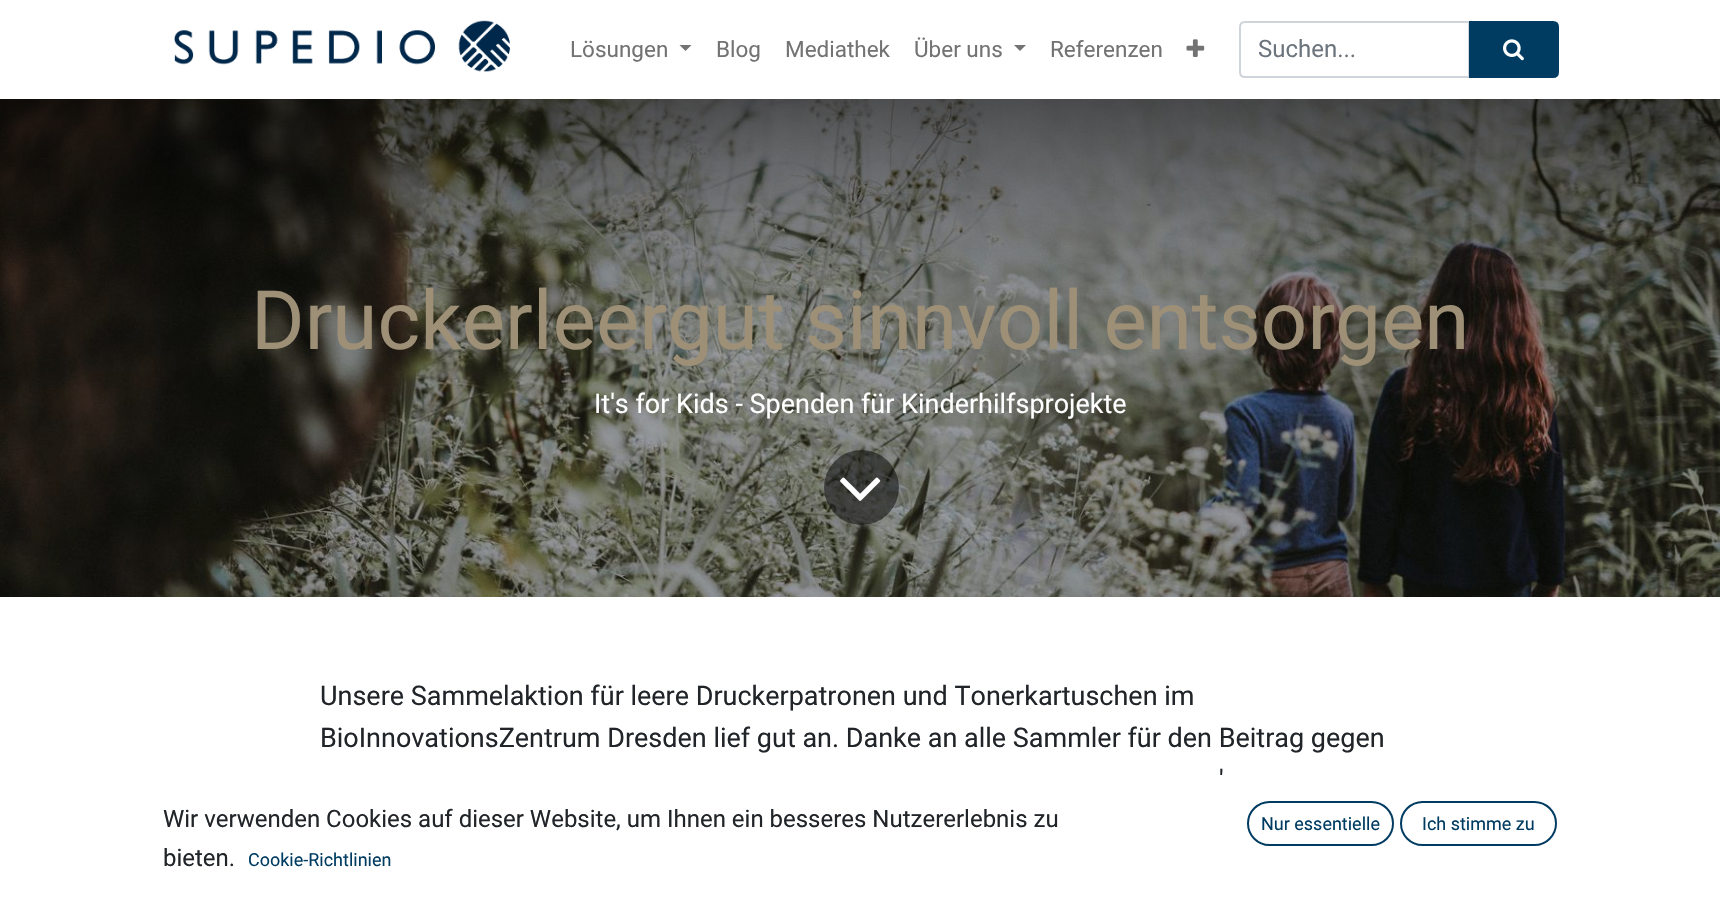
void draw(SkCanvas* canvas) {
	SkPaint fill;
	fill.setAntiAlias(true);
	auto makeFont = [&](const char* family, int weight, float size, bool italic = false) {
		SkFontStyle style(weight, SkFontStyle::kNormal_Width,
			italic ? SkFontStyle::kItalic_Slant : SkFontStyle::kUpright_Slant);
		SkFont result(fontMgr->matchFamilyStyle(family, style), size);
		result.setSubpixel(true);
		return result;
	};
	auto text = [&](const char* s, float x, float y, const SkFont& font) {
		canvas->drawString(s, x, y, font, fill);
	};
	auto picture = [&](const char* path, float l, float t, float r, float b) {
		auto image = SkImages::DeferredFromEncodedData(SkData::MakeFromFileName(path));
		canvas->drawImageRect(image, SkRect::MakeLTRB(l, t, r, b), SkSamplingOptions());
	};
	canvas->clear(0xFFFFFFFF);
	picture("image0.png", 174, 20, 510, 72);
	fill.setColor(0xFF737373);
	canvas->drawPath(SkPathBuilder().moveTo(679.5f, 45).lineTo(691.5f, 45).lineTo(685.5f, 51).close().detach(), fill);
	canvas->drawPath(SkPathBuilder().moveTo(1014, 45).lineTo(1026, 45).lineTo(1020, 51).close().detach(), fill);
	picture("image1.png", 1186, 39, 1205, 57);
	fill.setStyle(SkPaint::kStroke_Style);
	fill.setStrokeWidth(2);
	fill.setColor(0xFFCED4DA);
	canvas->drawPath(SkPathBuilder().moveTo(1245, 22).lineTo(1469, 22).lineTo(1469, 77).lineTo(1245, 77).cubicTo(1242, 77, 1240, 75, 1240, 72).lineTo(1240, 27).cubicTo(1240, 24, 1242, 22, 1245, 22).close().detach(), fill);
	fill.setStyle(SkPaint::kFill_Style);
	fill.setColor(0xFF003C62);
	canvas->drawPath(SkPathBuilder().moveTo(1470, 22).lineTo(1553, 22).cubicTo(1556, 22, 1558, 24, 1558, 27).lineTo(1558, 72).cubicTo(1558, 75, 1556, 77, 1553, 77).lineTo(1470, 77).close().detach(), fill);
	fill.setStyle(SkPaint::kStroke_Style);
	canvas->drawPath(SkPathBuilder().moveTo(1470, 22).lineTo(1553, 22).cubicTo(1556, 22, 1558, 24, 1558, 27).lineTo(1558, 72).cubicTo(1558, 75, 1556, 77, 1553, 77).lineTo(1470, 77).close().detach(), fill);
	picture("image2.png", 1503, 39, 1524, 61);
	picture("image3.png", 0, 99, 1720, 597);
	fill.setStyle(SkPaint::kFill_Style);
	fill.setColor(0x80000000);
	canvas->drawCircle(861.5f, 487.5f, 37.5f, fill);
	picture("image4.png", 840, 477, 881, 501);
	fill.setStyle(SkPaint::kStroke_Style);
	fill.setColor(0xFF003C62);
	canvas->drawRoundRect(SkRect::MakeLTRB(1248, 802, 1393, 845), 21.5f, 21.5f, fill);
	canvas->drawRoundRect(SkRect::MakeLTRB(1401, 802, 1556, 845), 21.5f, 21.5f, fill);
	auto font1 = makeFont("Roboto", 400, 22.5f);
	fill.setStyle(SkPaint::kFill_Style);
	fill.setColor(0xFF737373);
	text("Lösungen", 570, 57, font1);
	text("Blog", 716, 57, font1);
	text("Mediathek", 785, 57, font1);
	text("Über uns", 914, 57, font1);
	text("Referenzen", 1050, 57, font1);
	auto font2 = makeFont("Roboto", 400, 24);
	fill.setColor(0xFF6C757D);
	text("Suchen...", 1258, 57, font2);
	auto font3 = makeFont("Roboto", 400, 81.8f);
	fill.setColor(0xFF9E8F77);
	text("Druckerleergut sinnvoll entsorgen", 251, 349, font3);
	auto font4 = makeFont("Roboto", 400, 27);
	fill.setColor(0xFFFFFFFF);
	text("It's for Kids - Spenden für Kinderhilfsprojekte", 594, 413, font4);
	fill.setColor(0xFF212529);
	text("Unsere Sammelaktion für leere Druckerpatronen und Tonerkartuschen im", 320, 705, font4);
	text("BioInnovationsZentrum Dresden lief gut an. Danke an alle Sammler für den Beitrag gegen", 320, 747, font4);
	text("'", 1219, 789, font4);
	text("Wir verwenden Cookies auf dieser Website, um Ihnen ein besseres Nutzererlebnis zu", 163, 827, font2);
	text("bieten.", 163, 866, font2);
	auto font5 = makeFont("Roboto", 400, 18);
	fill.setColor(0xFF003C62);
	text("Cookie-Richtlinien", 248, 866, font5);
	text("Nur essentielle", 1261, 830, font5);
	text("Ich stimme zu", 1422, 830, font5);
}
